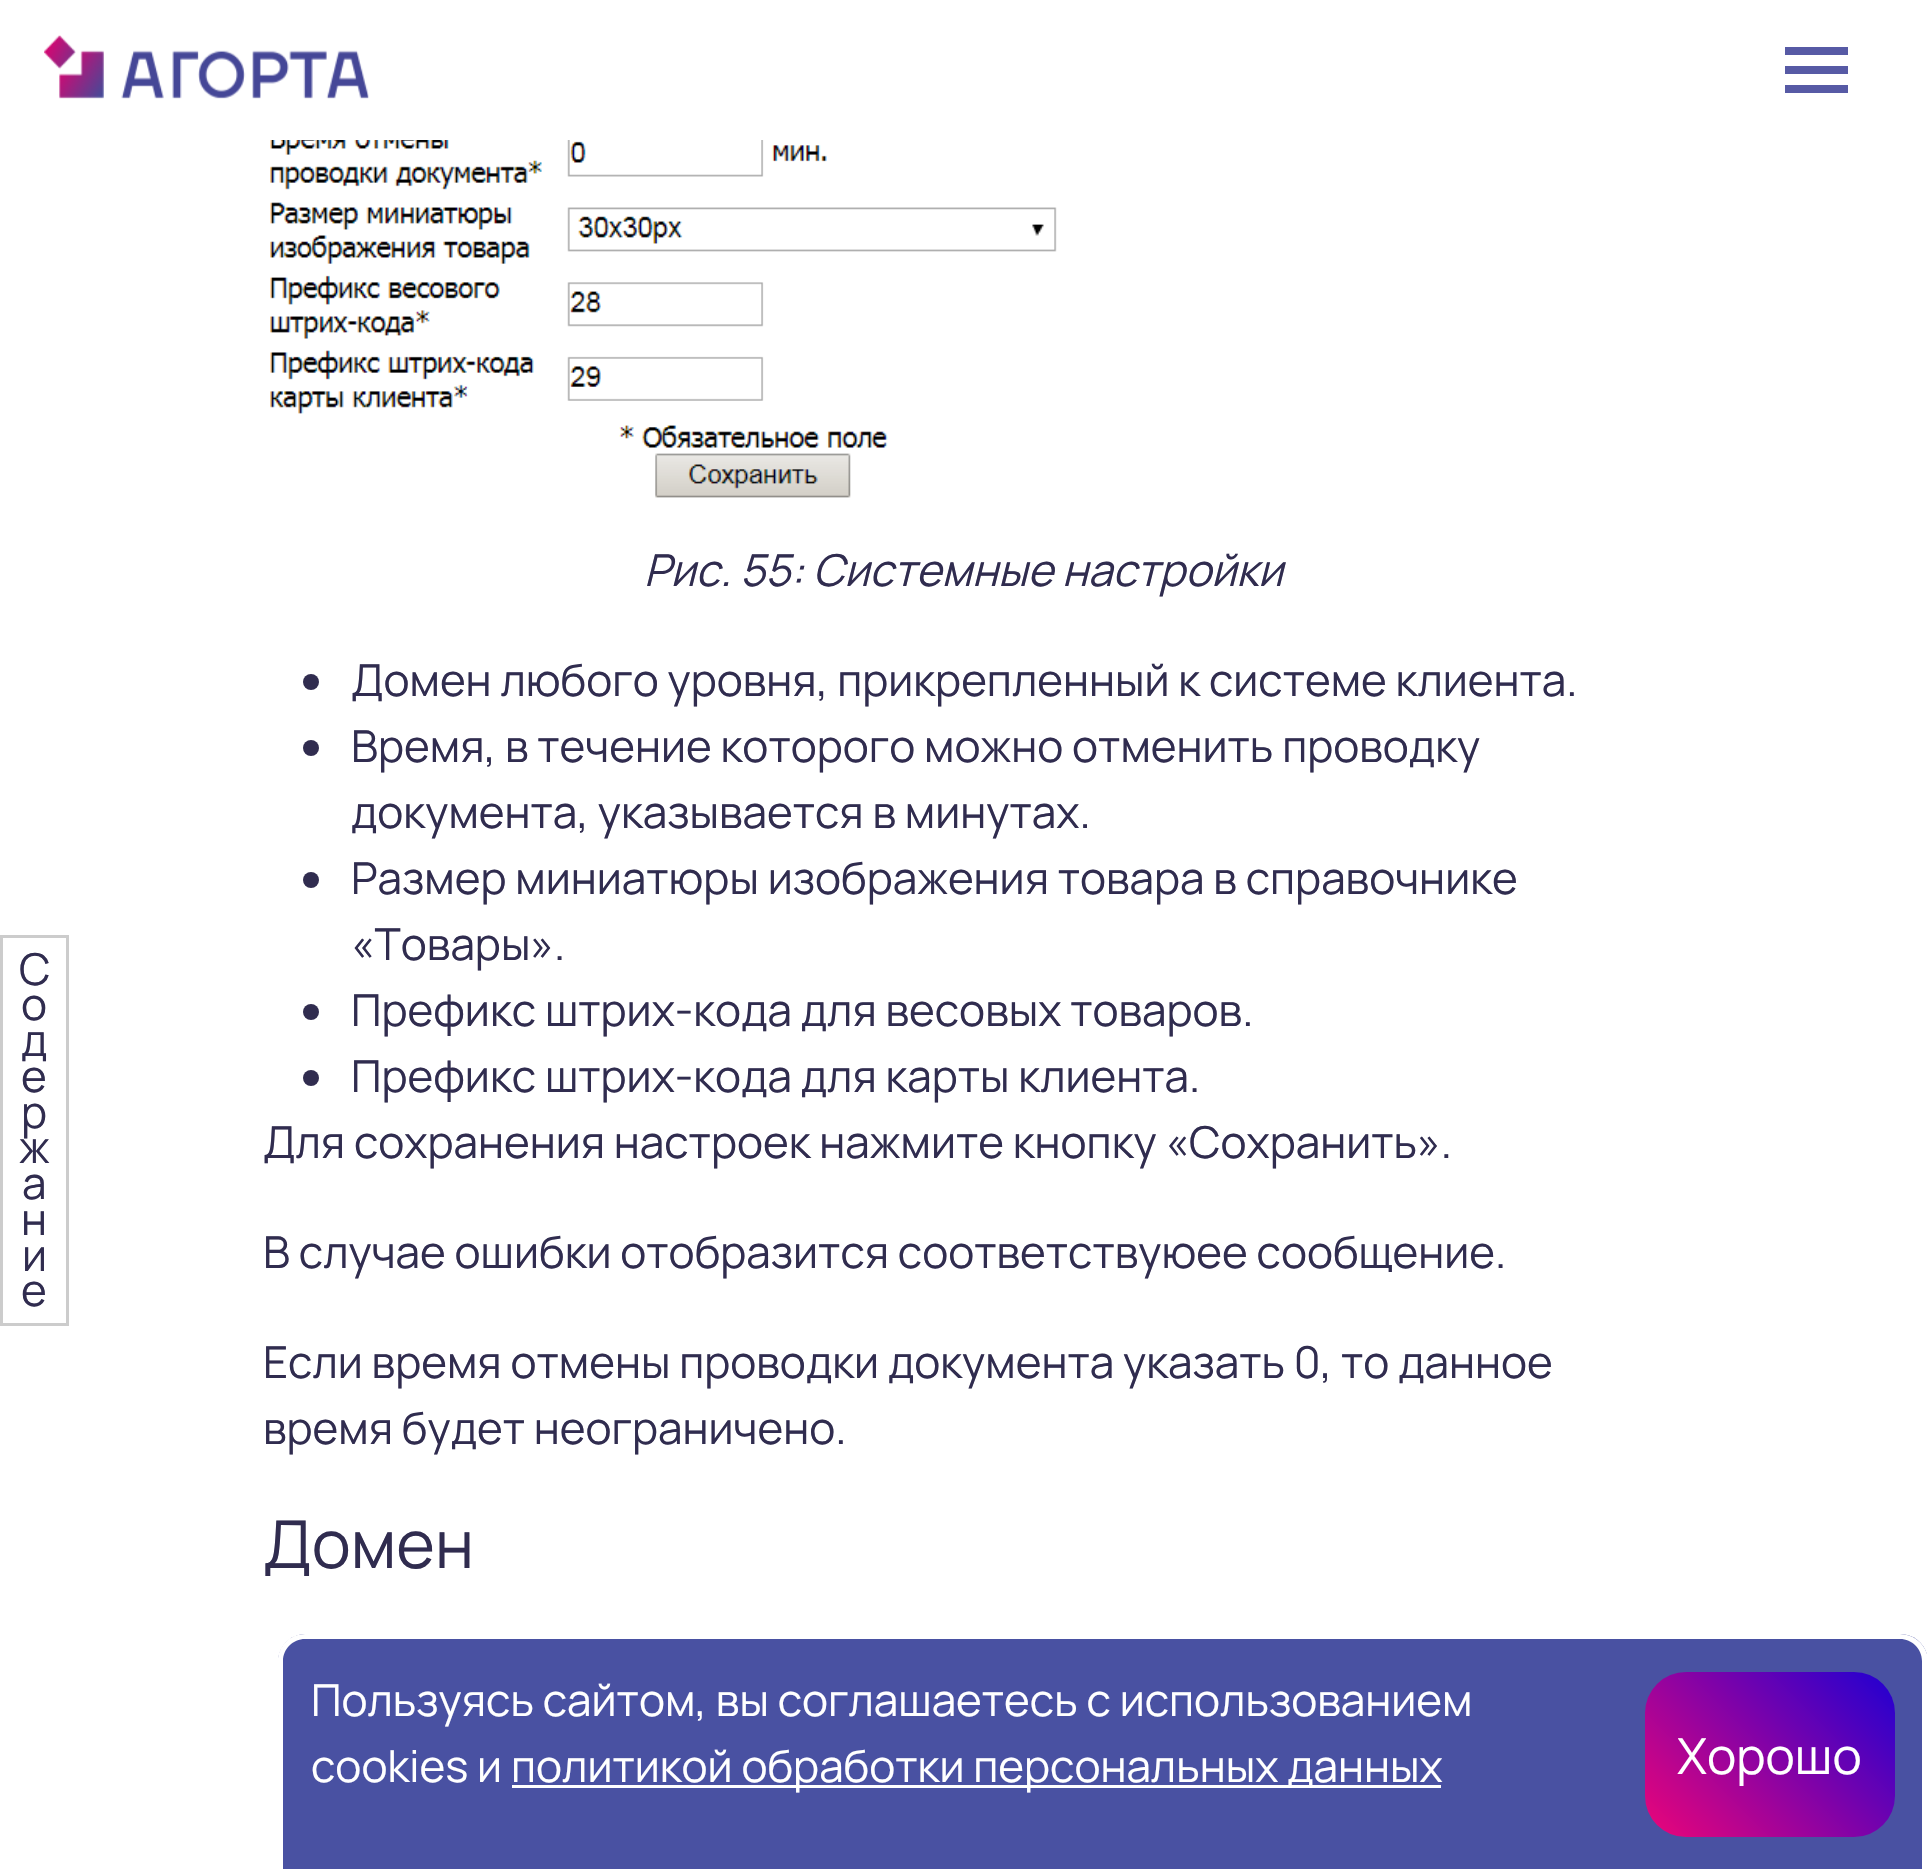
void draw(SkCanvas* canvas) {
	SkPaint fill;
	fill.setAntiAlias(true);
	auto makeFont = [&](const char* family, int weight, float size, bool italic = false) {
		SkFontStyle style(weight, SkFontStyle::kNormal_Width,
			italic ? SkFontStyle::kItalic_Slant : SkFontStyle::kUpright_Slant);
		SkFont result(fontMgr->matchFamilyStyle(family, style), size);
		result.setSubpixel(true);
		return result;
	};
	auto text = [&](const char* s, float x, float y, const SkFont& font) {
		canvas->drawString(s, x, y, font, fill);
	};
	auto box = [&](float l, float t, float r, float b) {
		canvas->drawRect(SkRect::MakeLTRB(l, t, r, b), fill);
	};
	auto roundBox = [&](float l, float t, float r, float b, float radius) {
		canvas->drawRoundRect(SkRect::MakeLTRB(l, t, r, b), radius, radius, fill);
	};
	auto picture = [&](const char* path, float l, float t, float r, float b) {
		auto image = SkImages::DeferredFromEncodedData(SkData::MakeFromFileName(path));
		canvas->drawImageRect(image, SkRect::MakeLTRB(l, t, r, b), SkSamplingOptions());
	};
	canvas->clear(0xFFFFFFFF);
	picture("image0.png", 44, 35, 369, 99);
	fill.setColor(0xFF575AA5);
	box(1785, 66, 1848, 74);
	box(1785, 47, 1848, 55);
	box(1785, 85, 1848, 93);
	fill.setStyle(SkPaint::kStroke_Style);
	fill.setStrokeWidth(3);
	fill.setColor(0xFFCCCCCC);
	canvas->drawRect(SkRect::MakeLTRB(1.5f, 936.5f, 67.5f, 1324.5f), fill);
	picture("image1.png", 270, 140, 1418, 498);
	fill.setStyle(SkPaint::kFill_Style);
	fill.setColor(0xFF302C4F);
	canvas->drawCircle(311, 682, 8, fill);
	canvas->drawCircle(311, 748, 8, fill);
	canvas->drawCircle(311, 880, 8, fill);
	canvas->drawCircle(311, 1012, 8, fill);
	canvas->drawCircle(311, 1078, 8, fill);
	fill.setColor(0xFF4951A2);
	canvas->drawPath(SkPathBuilder().moveTo(306, 1634).lineTo(1900, 1634).cubicTo(1915.5f, 1634, 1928, 1646.5f, 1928, 1662).lineTo(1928, 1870).lineTo(278, 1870).lineTo(278, 1662).cubicTo(278, 1646.5f, 290.5f, 1634, 306, 1634).close().detach(), fill);
	fill.setColor(0xFFFFFFFF);
	canvas->drawPath(SkPathBuilder(SkPathFillType::kEvenOdd).moveTo(305, 1634).lineTo(1900, 1634).cubicTo(1915, 1634, 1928, 1646, 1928, 1661).lineTo(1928, 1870).lineTo(278, 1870).lineTo(278, 1661).cubicTo(278, 1646, 290, 1634, 305, 1634).close().moveTo(305, 1639).lineTo(1900, 1639).cubicTo(1912, 1639, 1922, 1649, 1922, 1661).lineTo(1922, 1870).lineTo(283, 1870).lineTo(283, 1661).cubicTo(283, 1649, 293, 1639, 305, 1639).close().detach(), fill);
	box(512, 1785, 1441, 1788);
	{
		const SkColor colors[] = {0xFFEC0578, 0xFF2000D2};
		const float stops[] = {0, 1};
		const SkPoint ends[] = {{1666, 1858}, {1873, 1651}};
		fill.setShader(SkGradientShader::MakeLinear(ends, colors, stops, 2, SkTileMode::kClamp));
		fill.setAlpha(255);
	}
	roundBox(1645, 1672, 1895, 1837, 41);
	auto font1 = makeFont("Manrope", 400, 44);
	fill.setShader(nullptr);
	fill.setColor(0xFF302C4F);
	text("С", 19, 985, font1);
	text("о", 21, 1020, font1);
	text("д", 21, 1056, font1);
	text("е", 21, 1092, font1);
	text("р", 21, 1128, font1);
	text("ж", 19, 1163, font1);
	text("а", 22, 1199, font1);
	text("н", 21, 1235, font1);
	text("и", 22, 1271, font1);
	text("е", 21, 1306, font1);
	auto font2 = makeFont("Manrope", 400, 44, true);
	text("Рис. 55: Системные настройки", 644, 586, font2);
	text("Домен любого уровня, прикрепленный к системе клиента.", 351, 696, font1);
	text("Время, в течение которого можно отменить проводку", 351, 762, font1);
	text("документа, указывается в минутах.", 351, 828, font1);
	text("Размер миниатюры изображения товара в справочнике", 351, 894, font1);
	text("«Товары».", 351, 960, font1);
	text("Префикс штрих-кода для весовых товаров.", 351, 1026, font1);
	text("Префикс штрих-кода для карты клиента.", 351, 1092, font1);
	text("Для сохранения настроек нажмите кнопку «Сохранить».", 263, 1158, font1);
	text("В случае ошибки отобразится соответствуюее сообщение.", 263, 1268, font1);
	text("Если время отмены проводки документа указать 0, то данное", 263, 1378, font1);
	text("время будет неограничено.", 263, 1444, font1);
	auto font3 = makeFont("Manrope", 400, 66);
	text("Домен", 263, 1568, font3);
	fill.setColor(0xFFFFFFFF);
	text("Пользуясь сайтом, вы соглашаетесь с использованием", 311, 1716, font1);
	text("cookies и", 311, 1782, font1);
	text("политикой обработки персональных данных", 511, 1782, font1);
	auto font4 = makeFont("Manrope", 400, 49.5f);
	text("Хорошо", 1677, 1774, font4);
}
